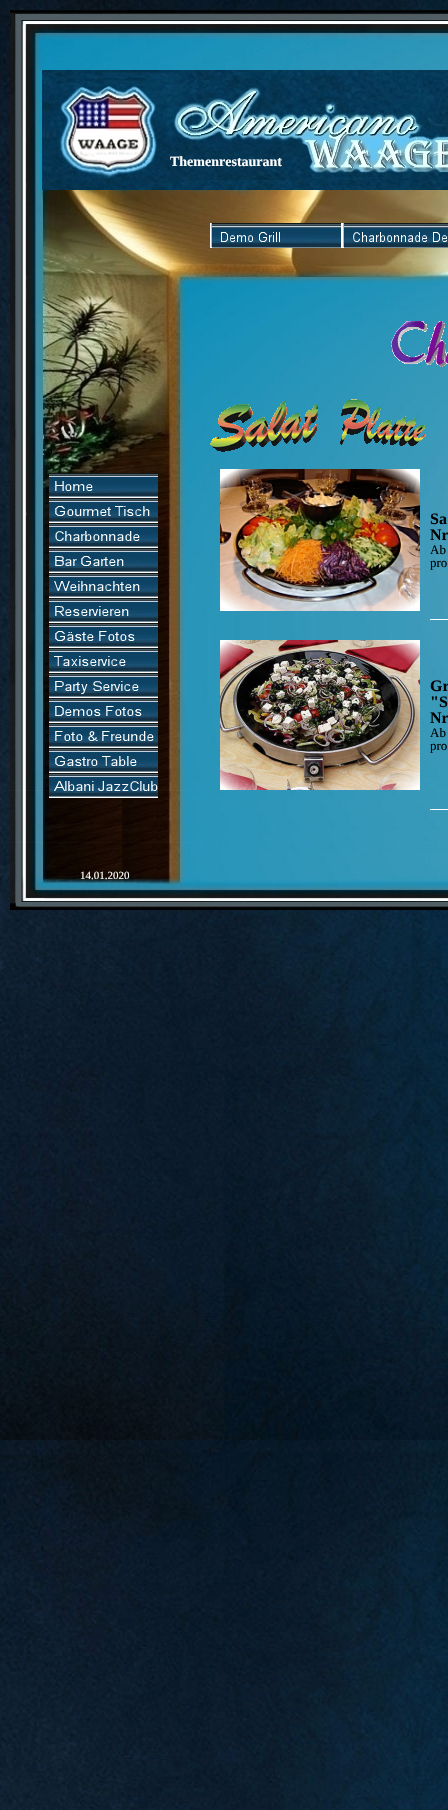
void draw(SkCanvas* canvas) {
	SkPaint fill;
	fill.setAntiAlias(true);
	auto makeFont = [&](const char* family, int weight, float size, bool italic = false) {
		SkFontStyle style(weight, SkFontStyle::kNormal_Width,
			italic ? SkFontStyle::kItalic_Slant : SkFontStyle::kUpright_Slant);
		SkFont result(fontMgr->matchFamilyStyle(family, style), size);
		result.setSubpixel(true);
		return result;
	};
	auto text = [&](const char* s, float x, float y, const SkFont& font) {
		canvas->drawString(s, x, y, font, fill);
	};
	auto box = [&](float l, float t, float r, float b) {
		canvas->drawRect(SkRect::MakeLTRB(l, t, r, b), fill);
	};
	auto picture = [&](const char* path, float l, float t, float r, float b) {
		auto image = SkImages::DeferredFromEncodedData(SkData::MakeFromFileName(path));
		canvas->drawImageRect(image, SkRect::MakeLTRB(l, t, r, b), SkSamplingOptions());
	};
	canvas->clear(0xFFFFFFFF);
	picture("image0.png", 0, 0, 448, 1810);
	picture("image1.png", 10, 10, 448, 910);
	picture("image2.png", 40, 70, 448, 190);
	picture("image3.png", 210, 223, 342, 248);
	picture("image4.png", 342, 223, 448, 248);
	picture("image5.png", 391, 321, 448, 367);
	picture("image6.png", 210, 399, 426, 452);
	picture("image7.png", 49, 473, 158, 498);
	picture("image8.png", 49, 498, 158, 523);
	picture("image9.png", 49, 523, 158, 548);
	picture("image10.png", 49, 548, 158, 573);
	picture("image11.png", 49, 573, 158, 598);
	picture("image12.png", 49, 598, 158, 623);
	picture("image13.png", 49, 623, 158, 648);
	picture("image14.png", 49, 648, 158, 673);
	picture("image15.png", 49, 673, 158, 698);
	picture("image16.png", 49, 698, 158, 723);
	picture("image17.png", 49, 723, 158, 748);
	picture("image18.png", 49, 748, 158, 773);
	picture("image19.png", 49, 773, 158, 798);
	picture("image20.png", 220, 469, 420, 611);
	fill.setColor(0xFFFFFFFF);
	box(430, 619, 448, 620);
	picture("image21.png", 220, 640, 420, 790);
	box(430, 809, 448, 810);
	auto font1 = makeFont("Liberation Serif", 700, 14);
	text("Themenrestaurant", 170, 166, font1);
	auto font2 = makeFont("Liberation Serif", 700, 16);
	fill.setColor(0xFF000000);
	text("Sa", 430, 524, font2);
	text("Nr", 430, 540, font2);
	auto font3 = makeFont("Liberation Serif", 400, 13);
	text("Ab", 430, 554, font3);
	text("pro", 430, 567, font3);
	text("Gr", 430, 691, font2);
	text("\"S", 430, 707, font2);
	text("Nr", 430, 723, font2);
	text("Ab", 430, 737, font3);
	text("pro", 430, 750, font3);
	auto font4 = makeFont("Liberation Serif", 400, 11);
	fill.setColor(0xFFFFFFFF);
	text("14.01.2020", 80, 879, font4);
}
